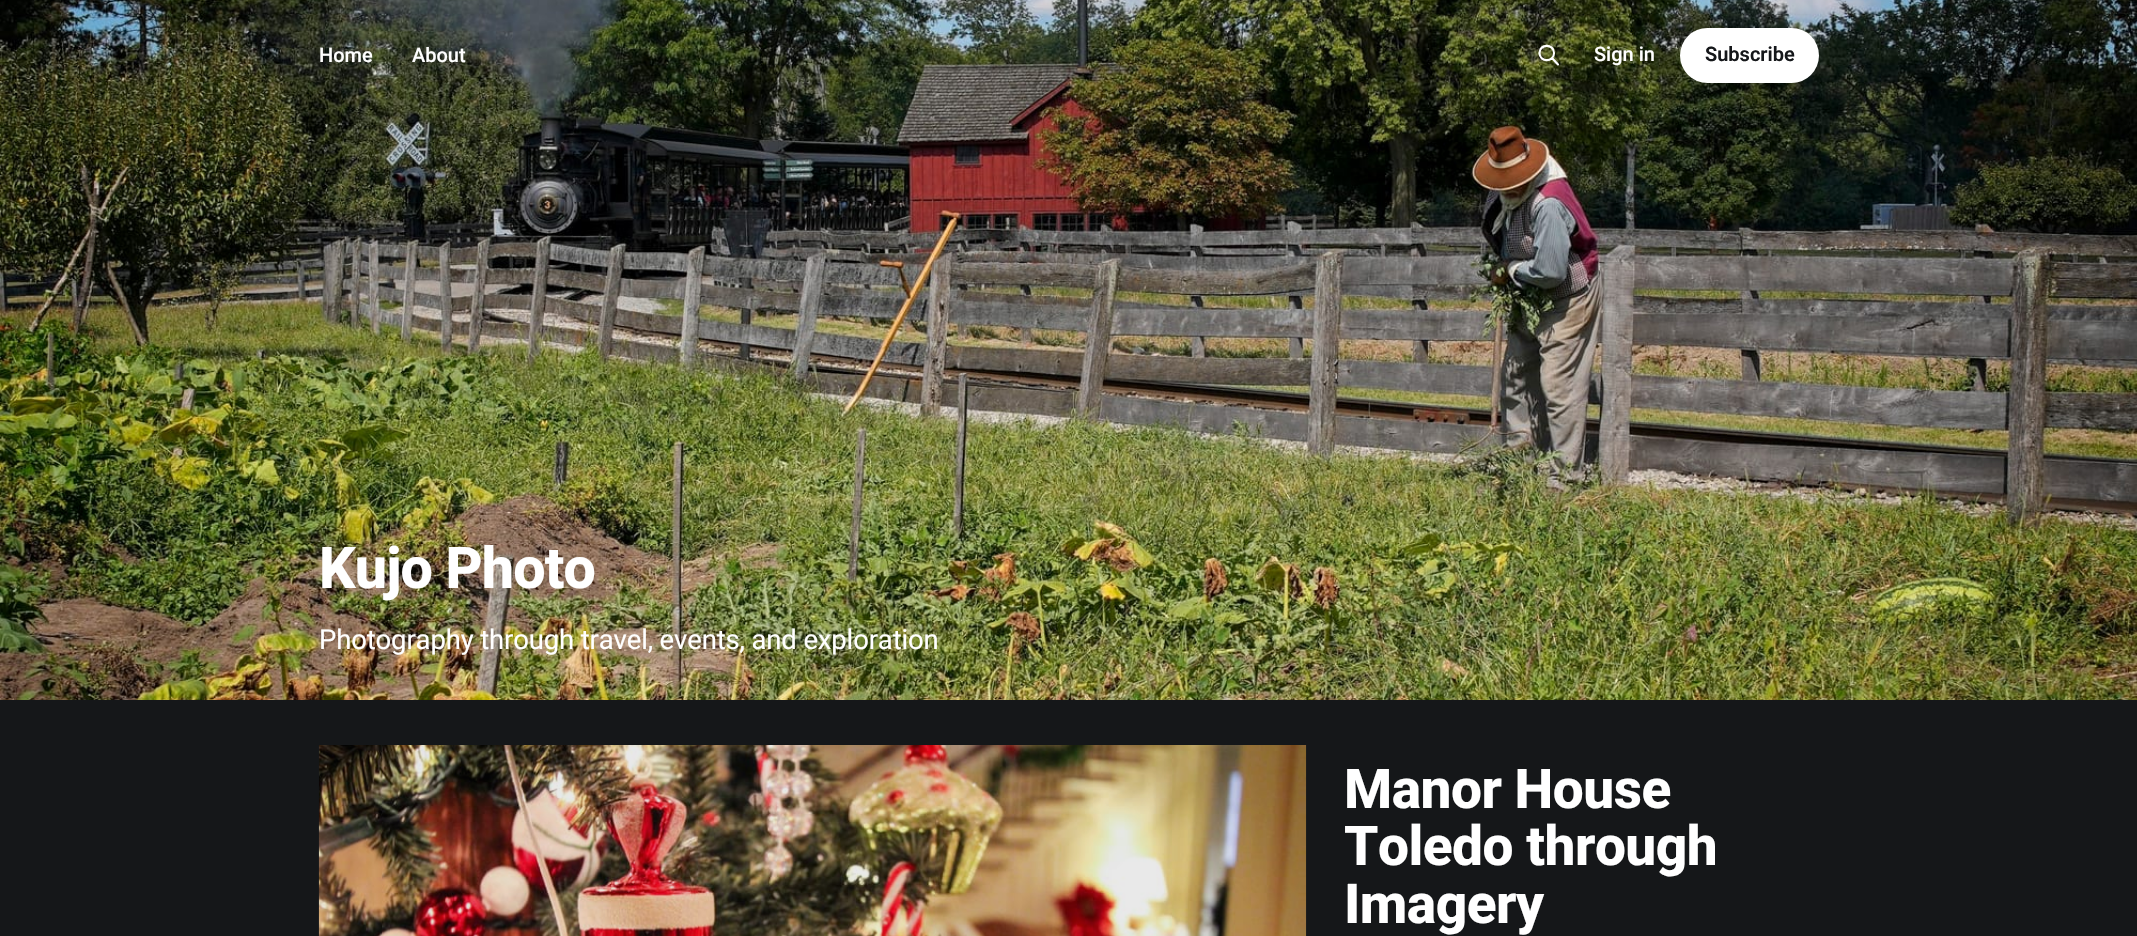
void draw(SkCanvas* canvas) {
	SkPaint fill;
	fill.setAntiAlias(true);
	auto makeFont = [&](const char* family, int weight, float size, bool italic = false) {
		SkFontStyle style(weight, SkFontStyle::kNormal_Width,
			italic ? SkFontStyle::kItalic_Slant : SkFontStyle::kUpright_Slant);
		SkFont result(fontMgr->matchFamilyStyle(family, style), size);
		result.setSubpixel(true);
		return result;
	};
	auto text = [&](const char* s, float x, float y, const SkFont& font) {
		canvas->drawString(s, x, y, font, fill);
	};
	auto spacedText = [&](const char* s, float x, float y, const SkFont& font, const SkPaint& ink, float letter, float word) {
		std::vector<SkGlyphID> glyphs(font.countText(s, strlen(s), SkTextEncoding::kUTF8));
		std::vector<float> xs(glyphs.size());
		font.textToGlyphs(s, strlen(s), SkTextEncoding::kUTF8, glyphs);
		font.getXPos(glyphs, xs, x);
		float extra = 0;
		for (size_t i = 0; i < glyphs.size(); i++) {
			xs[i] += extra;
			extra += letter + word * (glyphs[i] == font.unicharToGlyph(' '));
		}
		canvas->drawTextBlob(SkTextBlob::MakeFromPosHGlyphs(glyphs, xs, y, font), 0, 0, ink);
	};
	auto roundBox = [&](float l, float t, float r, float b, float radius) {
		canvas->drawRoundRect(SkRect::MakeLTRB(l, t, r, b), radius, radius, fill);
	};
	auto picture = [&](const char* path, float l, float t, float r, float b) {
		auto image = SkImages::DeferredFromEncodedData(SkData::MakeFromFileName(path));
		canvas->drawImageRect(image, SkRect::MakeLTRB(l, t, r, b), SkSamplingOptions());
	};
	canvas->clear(0xFF151719);
	picture("image0.png", 0, 0, 2137, 700);
	fill.setStyle(SkPaint::kStroke_Style);
	fill.setStrokeWidth(2.1f);
	fill.setStrokeCap(SkPaint::kRound_Cap);
	fill.setStrokeJoin(SkPaint::kRound_Join);
	fill.setColor(0xFFFFFFFF);
	canvas->drawPath(SkPathBuilder().moveTo(1558, 64.5f).lineTo(1552, 58).moveTo(1554, 53).cubicTo(1554, 62.5f, 1539.5f, 62.5f, 1539.5f, 53).cubicTo(1539.5f, 43.5f, 1554, 43.5f, 1554, 53).close().detach(), fill);
	fill.setStyle(SkPaint::kFill_Style);
	roundBox(1680, 28, 1819, 83, 27.5f);
	picture("image1.png", 318, 745, 1307, 936);
	auto font1 = makeFont("Roboto", 500, 20);
	text("Home", 319, 62, font1);
	text("About", 412, 62, font1);
	text("Sign in", 1594, 61, font1);
	auto font2 = makeFont("Roboto", 600, 20);
	fill.setColor(0xFF15171A);
	text("Subscribe", 1705, 61, font2);
	auto font3 = makeFont("Roboto", 800, 57.5f);
	fill.setColor(0xFFFFFFFF);
	spacedText("Kujo Photo", 319, 588, font3, fill, -0.9f, 0);
	auto font4 = makeFont("Roboto", 400, 27.5f);
	spacedText("Photography through travel, events, and exploration", 319, 649, font4, fill, -0.15f, 0);
	auto font5 = makeFont("Roboto", 800, 55);
	spacedText("Manor House", 1344, 808, font5, fill, -0.5f, 0);
	spacedText("Toledo through", 1344, 865, font5, fill, -0.5f, 0);
	spacedText("Imagery", 1344, 923, font5, fill, -0.5f, 0);
}
